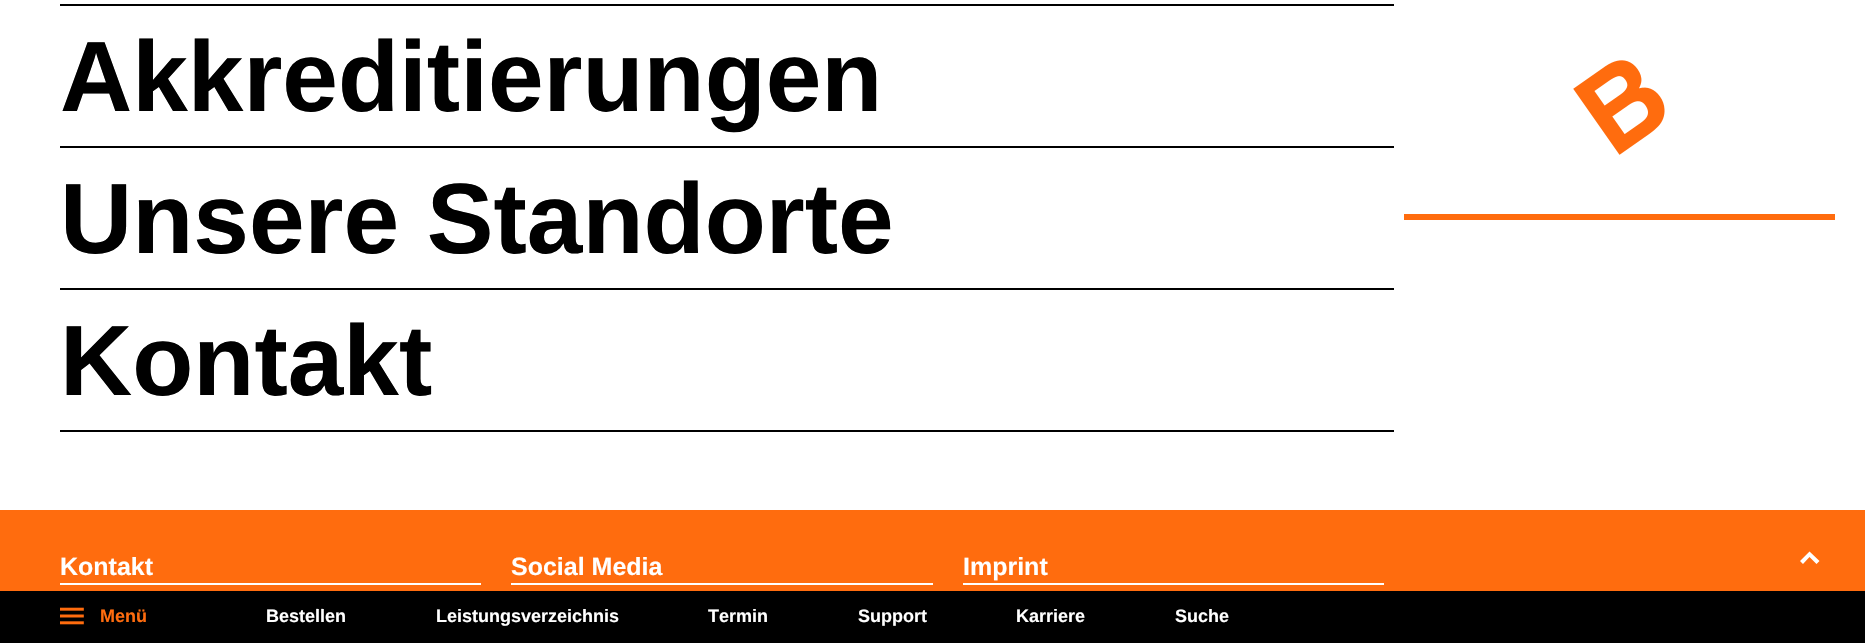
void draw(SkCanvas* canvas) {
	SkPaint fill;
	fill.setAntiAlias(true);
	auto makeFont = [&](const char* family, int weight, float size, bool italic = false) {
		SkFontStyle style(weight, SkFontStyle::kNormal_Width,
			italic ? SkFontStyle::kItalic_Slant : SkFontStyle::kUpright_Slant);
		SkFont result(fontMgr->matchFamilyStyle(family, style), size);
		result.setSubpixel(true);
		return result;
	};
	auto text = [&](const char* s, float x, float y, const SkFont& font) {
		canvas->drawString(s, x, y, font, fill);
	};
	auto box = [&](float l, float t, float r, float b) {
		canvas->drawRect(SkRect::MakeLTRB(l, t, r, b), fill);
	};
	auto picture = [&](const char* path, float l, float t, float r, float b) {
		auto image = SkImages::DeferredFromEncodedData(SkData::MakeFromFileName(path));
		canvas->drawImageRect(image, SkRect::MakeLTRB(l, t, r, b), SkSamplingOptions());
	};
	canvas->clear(0xFFFFFFFF);
	fill.setColor(0xFF000000);
	box(60, 4, 1394, 6);
	box(60, 146, 1394, 148);
	box(60, 288, 1394, 290);
	box(60, 430, 1394, 432);
	picture("image0.png", 1573, 60, 1665, 155);
	fill.setColor(0xFFFF6C0E);
	box(1404, 214, 1835, 220);
	box(0, 510, 1865, 591);
	fill.setColor(0xFFFFFFFF);
	canvas->drawPath(SkPathBuilder().moveTo(1819.5f, 561).lineTo(1809.5f, 551.5f).lineTo(1800, 561).lineTo(1803, 564).lineTo(1809.5f, 557).lineTo(1816.5f, 564).close().detach(), fill);
	box(60, 583, 481, 585);
	box(511, 583, 933, 585);
	box(963, 583, 1384, 585);
	fill.setColor(0xFF000000);
	box(0, 591, 1865, 643);
	picture("image1.png", 60, 607, 84, 625);
	auto font1 = makeFont("Liberation Sans", 700, 100);
	text("Akkreditierungen", 60, 111, font1);
	text("Unsere Standorte", 60, 253, font1);
	text("Kontakt", 60, 395, font1);
	auto font2 = makeFont("Liberation Sans", 700, 25);
	fill.setColor(0xFFFFFFFF);
	text("Kontakt", 60, 575, font2);
	text("Social Media", 511, 575, font2);
	text("Imprint", 963, 575, font2);
	auto font3 = makeFont("Liberation Sans", 700, 18);
	fill.setColor(0xFFFF6C0E);
	text("Menü", 100, 622, font3);
	fill.setColor(0xFFFFFFFF);
	text("Bestellen", 266, 622, font3);
	text("Leistungsverzeichnis", 436, 622, font3);
	text("Termin", 708, 622, font3);
	text("Support", 858, 622, font3);
	text("Karriere", 1016, 622, font3);
	text("Suche", 1175, 622, font3);
}
